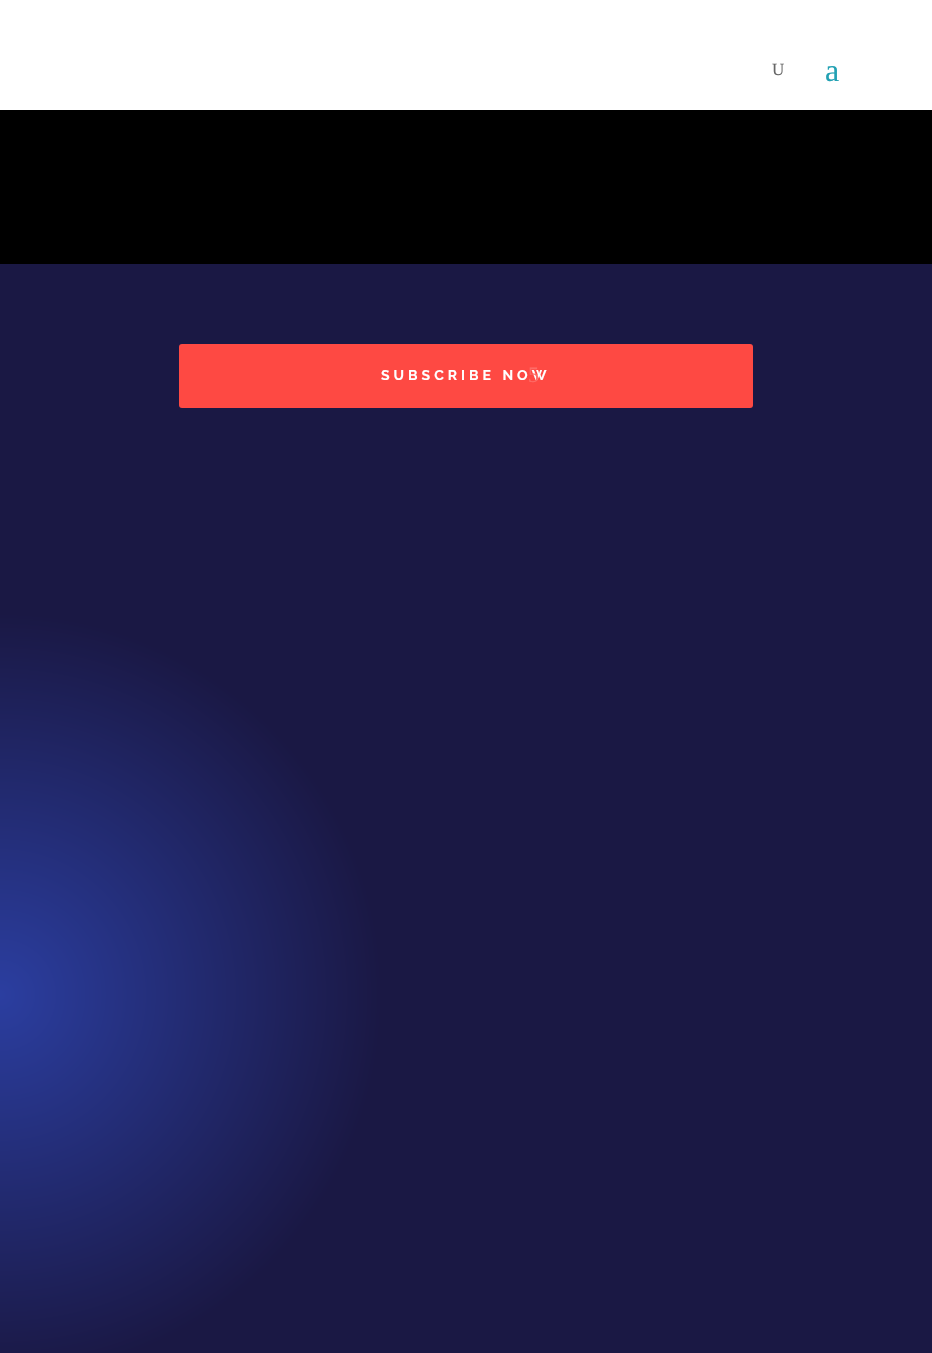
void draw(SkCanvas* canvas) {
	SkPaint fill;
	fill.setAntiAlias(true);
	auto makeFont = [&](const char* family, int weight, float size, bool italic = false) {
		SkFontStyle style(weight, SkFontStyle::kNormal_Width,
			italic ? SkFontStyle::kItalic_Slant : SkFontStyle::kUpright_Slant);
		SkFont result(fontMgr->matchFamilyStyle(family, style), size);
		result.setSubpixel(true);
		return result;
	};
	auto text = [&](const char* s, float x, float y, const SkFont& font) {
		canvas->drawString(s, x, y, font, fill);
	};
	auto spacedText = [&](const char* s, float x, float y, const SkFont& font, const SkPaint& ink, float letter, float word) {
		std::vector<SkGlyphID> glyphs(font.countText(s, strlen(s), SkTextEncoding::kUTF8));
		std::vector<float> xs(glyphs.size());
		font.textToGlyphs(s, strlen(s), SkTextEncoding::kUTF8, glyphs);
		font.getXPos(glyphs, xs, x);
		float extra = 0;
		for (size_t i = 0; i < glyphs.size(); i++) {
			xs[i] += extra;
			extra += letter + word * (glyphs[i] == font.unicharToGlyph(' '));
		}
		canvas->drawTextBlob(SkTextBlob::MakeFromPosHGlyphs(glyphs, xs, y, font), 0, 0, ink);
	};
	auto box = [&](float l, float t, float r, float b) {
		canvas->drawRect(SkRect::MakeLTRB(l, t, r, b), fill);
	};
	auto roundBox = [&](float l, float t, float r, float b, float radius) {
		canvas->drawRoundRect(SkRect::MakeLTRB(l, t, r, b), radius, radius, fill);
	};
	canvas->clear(0xFFFFFFFF);
	fill.setColor(0xFF000000);
	box(0, 110, 932, 264);
	fill.setColor(0xFF1A1844);
	box(0, 264, 932, 488);
	fill.setColor(0xFFFE4943);
	roundBox(179, 344, 753, 408, 3);
	{
		const SkColor colors[] = {0xFF2B3EA0, 0xFF1A1844};
		const float stops[] = {0, 0.36f};
		fill.setShader(SkGradientShader::MakeRadial({0, 995}, 1061, colors, stops, 2, SkTileMode::kClamp));
		fill.setAlpha(255);
	}
	box(0, 488, 932, 1353);
	auto font1 = makeFont("Liberation Serif", 400, 17);
	fill.setShader(nullptr);
	fill.setColor(0xFF666666);
	text("U", 772, 75, font1);
	auto font2 = makeFont("Liberation Serif", 400, 32);
	fill.setColor(0xFF22A1B3);
	text("a", 825, 81, font2);
	auto font3 = makeFont("Raleway", 700, 14);
	fill.setColor(0xFFFFFFFF);
	spacedText("SUBSCRIBE NOW", 381, 380, font3, fill, 4, 0);
	auto font4 = makeFont("Liberation Serif", 400, 22);
	fill.setColor(0xFFFE6B66);
	spacedText("5", 528, 382, font4, fill, 4, 0);
}
